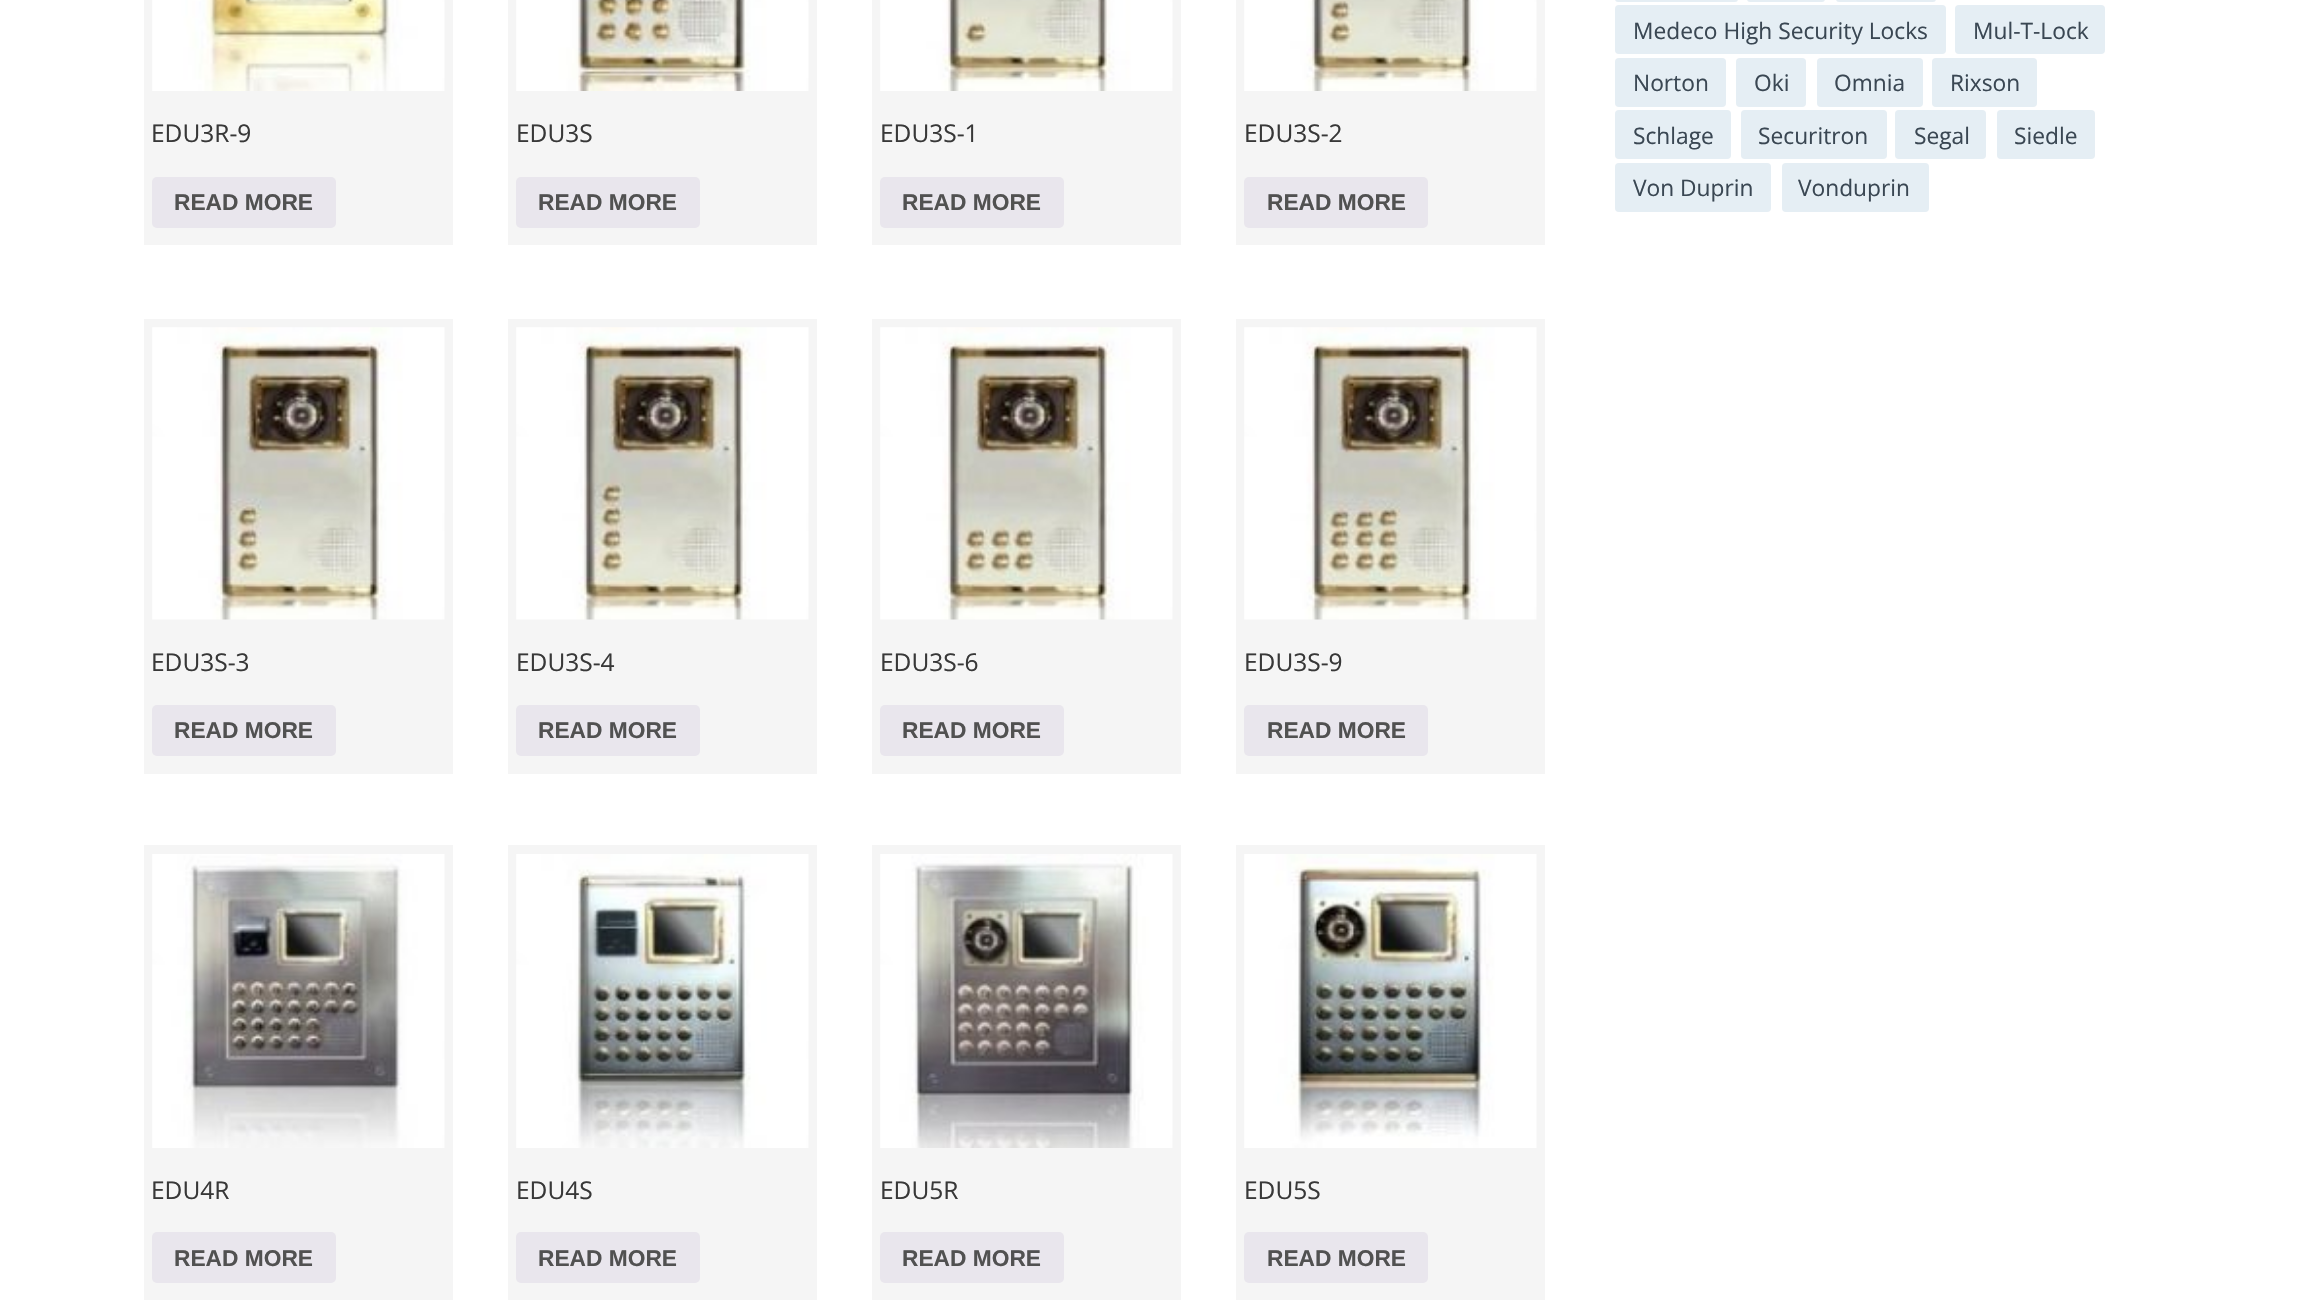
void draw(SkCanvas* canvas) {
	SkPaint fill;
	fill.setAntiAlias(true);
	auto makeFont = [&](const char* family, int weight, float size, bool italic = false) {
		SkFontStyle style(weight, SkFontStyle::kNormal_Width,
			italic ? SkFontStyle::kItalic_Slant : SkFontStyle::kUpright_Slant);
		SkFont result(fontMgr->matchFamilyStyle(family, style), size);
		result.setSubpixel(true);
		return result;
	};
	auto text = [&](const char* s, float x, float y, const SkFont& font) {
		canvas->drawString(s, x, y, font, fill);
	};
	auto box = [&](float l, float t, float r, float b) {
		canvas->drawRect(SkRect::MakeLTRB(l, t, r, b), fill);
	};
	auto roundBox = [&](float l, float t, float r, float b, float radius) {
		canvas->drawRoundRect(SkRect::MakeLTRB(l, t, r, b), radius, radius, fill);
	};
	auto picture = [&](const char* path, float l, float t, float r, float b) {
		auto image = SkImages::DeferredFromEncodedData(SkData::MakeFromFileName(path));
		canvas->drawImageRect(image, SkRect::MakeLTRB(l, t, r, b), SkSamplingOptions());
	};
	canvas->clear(0xFFFFFFFF);
	fill.setColor(0xFFF5F5F5);
	box(144, 0, 453, 245);
	picture("image0.png", 152, 0, 445, 91);
	fill.setColor(0xFFE9E6ED);
	roundBox(152, 177, 336, 228, 5);
	fill.setColor(0xFFF5F5F5);
	box(508, 0, 817, 245);
	picture("image1.png", 516, 0, 809, 91);
	fill.setColor(0xFFE9E6ED);
	roundBox(516, 177, 700, 228, 5);
	fill.setColor(0xFFF5F5F5);
	box(872, 0, 1181, 245);
	picture("image2.png", 880, 0, 1173, 91);
	fill.setColor(0xFFE9E6ED);
	roundBox(880, 177, 1064, 228, 5);
	fill.setColor(0xFFF5F5F5);
	box(1236, 0, 1545, 245);
	picture("image3.png", 1244, 0, 1537, 91);
	fill.setColor(0xFFE9E6ED);
	roundBox(1244, 177, 1428, 228, 5);
	fill.setColor(0xFFF5F5F5);
	box(144, 319, 453, 774);
	picture("image4.png", 152, 327, 445, 620);
	fill.setColor(0xFFE9E6ED);
	roundBox(152, 705, 336, 756, 5);
	fill.setColor(0xFFF5F5F5);
	box(508, 319, 817, 774);
	picture("image5.png", 516, 327, 809, 620);
	fill.setColor(0xFFE9E6ED);
	roundBox(516, 705, 700, 756, 5);
	fill.setColor(0xFFF5F5F5);
	box(872, 319, 1181, 774);
	picture("image6.png", 880, 327, 1173, 620);
	fill.setColor(0xFFE9E6ED);
	roundBox(880, 705, 1064, 756, 5);
	fill.setColor(0xFFF5F5F5);
	box(1236, 319, 1545, 774);
	picture("image7.png", 1244, 327, 1537, 620);
	fill.setColor(0xFFE9E6ED);
	roundBox(1244, 705, 1428, 756, 5);
	fill.setColor(0xFFF5F5F5);
	box(144, 845, 453, 1300);
	picture("image8.png", 152, 854, 445, 1148);
	fill.setColor(0xFFE9E6ED);
	roundBox(152, 1232, 336, 1283, 5);
	fill.setColor(0xFFF5F5F5);
	box(508, 845, 817, 1300);
	picture("image9.png", 516, 854, 809, 1148);
	fill.setColor(0xFFE9E6ED);
	roundBox(516, 1232, 700, 1283, 5);
	fill.setColor(0xFFF5F5F5);
	box(872, 845, 1181, 1300);
	picture("image10.png", 880, 854, 1173, 1148);
	fill.setColor(0xFFE9E6ED);
	roundBox(880, 1232, 1064, 1283, 5);
	fill.setColor(0xFFF5F5F5);
	box(1236, 845, 1545, 1300);
	picture("image11.png", 1244, 854, 1537, 1148);
	fill.setColor(0xFFE9E6ED);
	roundBox(1244, 1232, 1428, 1283, 5);
	fill.setColor(0xFFE5EEF4);
	roundBox(1615, -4, 1738, 2, 4);
	roundBox(1747, -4, 1825, 2, 4);
	roundBox(1836, -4, 1936, 2, 4);
	roundBox(1615, 5, 1946, 54, 4);
	roundBox(1955, 5, 2105, 54, 4);
	roundBox(1615, 58, 1726, 107, 4);
	roundBox(1736, 58, 1806, 107, 4);
	roundBox(1817, 58, 1923, 107, 4);
	roundBox(1932, 58, 2037, 107, 4);
	roundBox(1615, 110, 1731, 159, 4);
	roundBox(1741, 110, 1887, 159, 4);
	roundBox(1895, 110, 1986, 159, 4);
	roundBox(1997, 110, 2095, 159, 4);
	roundBox(1615, 163, 1771, 212, 4);
	roundBox(1782, 163, 1929, 212, 4);
	auto font1 = makeFont("Open Sans", 400, 24.5f);
	fill.setColor(0xFF383838);
	text("EDU3R-9", 151, 142, font1);
	auto font2 = makeFont("Liberation Sans", 700, 22.75f);
	fill.setColor(0xFF515151);
	text("READ MORE", 174, 210, font2);
	fill.setColor(0xFF383838);
	text("EDU3S", 516, 142, font1);
	fill.setColor(0xFF515151);
	text("READ MORE", 538, 210, font2);
	fill.setColor(0xFF383838);
	text("EDU3S-1", 880, 142, font1);
	fill.setColor(0xFF515151);
	text("READ MORE", 902, 210, font2);
	fill.setColor(0xFF383838);
	text("EDU3S-2", 1244, 142, font1);
	fill.setColor(0xFF515151);
	text("READ MORE", 1267, 210, font2);
	fill.setColor(0xFF383838);
	text("EDU3S-3", 151, 671, font1);
	fill.setColor(0xFF515151);
	text("READ MORE", 174, 738, font2);
	fill.setColor(0xFF383838);
	text("EDU3S-4", 516, 671, font1);
	fill.setColor(0xFF515151);
	text("READ MORE", 538, 738, font2);
	fill.setColor(0xFF383838);
	text("EDU3S-6", 880, 671, font1);
	fill.setColor(0xFF515151);
	text("READ MORE", 902, 738, font2);
	fill.setColor(0xFF383838);
	text("EDU3S-9", 1244, 671, font1);
	fill.setColor(0xFF515151);
	text("READ MORE", 1267, 738, font2);
	fill.setColor(0xFF383838);
	text("EDU4R", 151, 1199, font1);
	fill.setColor(0xFF515151);
	text("READ MORE", 174, 1266, font2);
	fill.setColor(0xFF383838);
	text("EDU4S", 516, 1199, font1);
	fill.setColor(0xFF515151);
	text("READ MORE", 538, 1266, font2);
	fill.setColor(0xFF383838);
	text("EDU5R", 880, 1199, font1);
	fill.setColor(0xFF515151);
	text("READ MORE", 902, 1266, font2);
	fill.setColor(0xFF383838);
	text("EDU5S", 1244, 1199, font1);
	fill.setColor(0xFF515151);
	text("READ MORE", 1267, 1266, font2);
	auto font3 = makeFont("Open Sans", 400, 22.75f);
	fill.setColor(0xFF3A4753);
	text("Medeco High Security Locks", 1633, 39, font3);
	text("Mul-T-Lock", 1973, 39, font3);
	text("Norton", 1633, 91, font3);
	text("Oki", 1754, 91, font3);
	text("Omnia", 1834, 91, font3);
	text("Rixson", 1950, 91, font3);
	text("Schlage", 1633, 144, font3);
	text("Securitron", 1758, 144, font3);
	text("Segal", 1914, 144, font3);
	text("Siedle", 2014, 144, font3);
	text("Von Duprin", 1633, 196, font3);
	text("Vonduprin", 1798, 196, font3);
}
